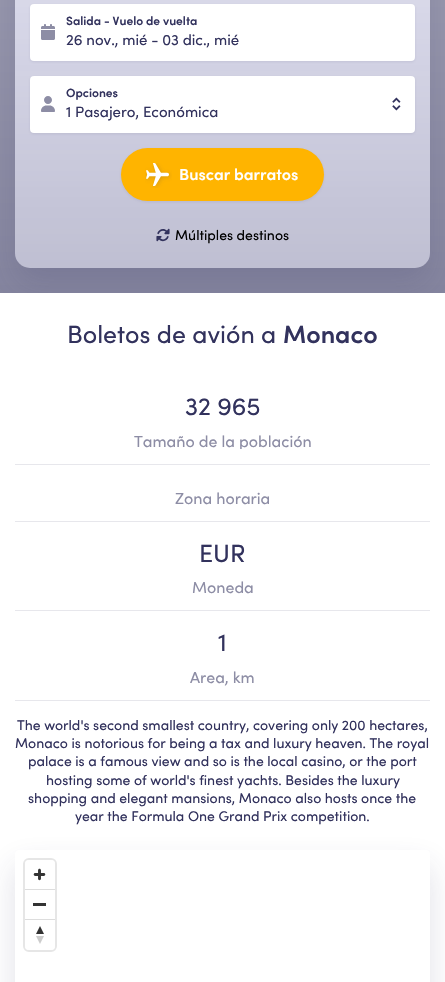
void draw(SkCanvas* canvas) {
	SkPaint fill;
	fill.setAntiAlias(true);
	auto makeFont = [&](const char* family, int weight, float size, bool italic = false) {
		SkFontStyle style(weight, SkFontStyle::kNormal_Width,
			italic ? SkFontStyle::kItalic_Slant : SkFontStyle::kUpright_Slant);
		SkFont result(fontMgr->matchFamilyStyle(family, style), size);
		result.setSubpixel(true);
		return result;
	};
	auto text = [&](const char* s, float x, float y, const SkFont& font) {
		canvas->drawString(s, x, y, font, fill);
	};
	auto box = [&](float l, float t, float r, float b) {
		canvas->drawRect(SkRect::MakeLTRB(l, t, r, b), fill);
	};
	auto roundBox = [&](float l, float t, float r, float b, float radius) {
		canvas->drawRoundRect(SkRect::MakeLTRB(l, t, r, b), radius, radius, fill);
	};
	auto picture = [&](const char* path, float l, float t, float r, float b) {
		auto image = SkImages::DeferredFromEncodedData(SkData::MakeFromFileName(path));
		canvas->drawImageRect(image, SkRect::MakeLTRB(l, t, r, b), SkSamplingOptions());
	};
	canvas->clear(0xFFFFFFFF);
	{
		const SkColor colors[] = {0xFF84849E, 0xFFADADBE};
		const float stops[] = {0, 1};
		const SkPoint ends[] = {{223, 293}, {223, -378}};
		fill.setShader(SkGradientShader::MakeLinear(ends, colors, stops, 2, SkTileMode::kClamp));
		fill.setAlpha(255);
	}
	box(0, 0, 445, 293);
	canvas->save();
	canvas->clipRect(SkRect::MakeLTRB(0, 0, 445, 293));
	canvas->clipPath(SkPathBuilder(SkPathFillType::kEvenOdd).moveTo(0, 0).lineTo(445, 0).lineTo(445, 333).lineTo(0, 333).close().moveTo(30, -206).lineTo(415, -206).cubicTo(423.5f, -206, 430, -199.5f, 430, -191).lineTo(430, 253).cubicTo(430, 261.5f, 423.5f, 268, 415, 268).lineTo(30, 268).cubicTo(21.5f, 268, 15, 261.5f, 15, 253).lineTo(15, -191).cubicTo(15, -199.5f, 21.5f, -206, 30, -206).close().detach(), true);
	fill.setShader(nullptr);
	fill.setColor(0x2632325D);
	fill.setMaskFilter(SkMaskFilter::MakeBlur(kNormal_SkBlurStyle, 16));
	canvas->drawRoundRect(SkRect::MakeLTRB(15, -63, 430, 284), 15, 15, fill);
	fill.setMaskFilter(nullptr);
	canvas->restore();
	{
		const SkColor colors[] = {0x8CEDEDFC, 0xE6EDEDFC};
		const float stops[] = {0, 1};
		const SkPoint ends[] = {{223, 268}, {223, -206}};
		fill.setShader(SkGradientShader::MakeLinear(ends, colors, stops, 2, SkTileMode::kClamp));
		fill.setAlpha(255);
	}
	roundBox(15, -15, 430, 268, 15);
	fill.setShader(nullptr);
	fill.setColor(0x1A32325D);
	fill.setMaskFilter(SkMaskFilter::MakeBlur(kNormal_SkBlurStyle, 1.5f));
	canvas->drawRoundRect(SkRect::MakeLTRB(30, 5, 415, 62), 4, 4, fill);
	fill.setMaskFilter(nullptr);
	fill.setColor(0xFFFFFFFF);
	roundBox(30, 4, 415, 61, 4);
	picture("image0.png", 41, 24, 55, 40);
	fill.setColor(0x1A32325D);
	fill.setMaskFilter(SkMaskFilter::MakeBlur(kNormal_SkBlurStyle, 1.5f));
	canvas->drawRoundRect(SkRect::MakeLTRB(30, 77, 415, 134), 4, 4, fill);
	fill.setMaskFilter(nullptr);
	fill.setColor(0xFFFFFFFF);
	roundBox(30, 76, 415, 133, 4);
	picture("image1.png", 392, 97, 401, 111);
	picture("image2.png", 41, 96, 55, 112);
	fill.setColor(0x1A32325D);
	fill.setMaskFilter(SkMaskFilter::MakeBlur(kNormal_SkBlurStyle, 1.5f));
	canvas->drawRoundRect(SkRect::MakeLTRB(121, 149, 324, 202), 26.5f, 26.5f, fill);
	fill.setMaskFilter(nullptr);
	fill.setColor(0xFFFFB400);
	roundBox(121, 148, 324, 201, 26.5f);
	picture("image3.png", 145, 163, 172, 188);
	picture("image4.png", 156, 228, 170, 242);
	fill.setColor(0xFFE7E7EC);
	box(15, 464, 430, 465);
	box(15, 521, 430, 522);
	box(15, 610, 430, 611);
	box(15, 700, 430, 701);
	canvas->save();
	canvas->clipPath(SkPathBuilder(SkPathFillType::kEvenOdd).moveTo(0, 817).lineTo(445, 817).lineTo(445, 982).lineTo(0, 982).close().moveTo(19, 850).lineTo(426, 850).cubicTo(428, 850, 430, 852, 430, 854).lineTo(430, 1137).cubicTo(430, 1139, 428, 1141, 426, 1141).lineTo(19, 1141).cubicTo(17, 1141, 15, 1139, 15, 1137).lineTo(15, 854).cubicTo(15, 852, 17, 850, 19, 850).close().detach(), true);
	fill.setColor(0x2632325D);
	fill.setMaskFilter(SkMaskFilter::MakeBlur(kNormal_SkBlurStyle, 16));
	canvas->drawRoundRect(SkRect::MakeLTRB(15, 866, 430, 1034), 4, 4, fill);
	fill.setMaskFilter(nullptr);
	canvas->restore();
	fill.setStyle(SkPaint::kStroke_Style);
	fill.setStrokeWidth(2);
	fill.setColor(0xFFE6E6E6);
	canvas->drawRoundRect(SkRect::MakeLTRB(24, 859, 56, 951), 5, 5, fill);
	fill.setStyle(SkPaint::kFill_Style);
	fill.setColor(0xFFFFFFFF);
	roundBox(25, 860, 55, 950, 4);
	picture("image5.png", 33, 868, 46, 881);
	fill.setColor(0xFFDDDDDD);
	box(25, 889, 55, 890);
	fill.setColor(0xFF333333);
	box(33, 903, 46, 906);
	fill.setColor(0xFFDDDDDD);
	box(25, 919, 55, 920);
	picture("image6.png", 36, 926, 44, 944);
	auto font1 = makeFont("Sofia", 600, 12);
	fill.setColor(0xFF32325D);
	text("Salida - Vuelo de vuelta", 66, 25, font1);
	auto font2 = makeFont("Sofia", 400, 15);
	text("26 nov., mié - 03 dic., mié", 66, 45, font2);
	text("Opciones", 66, 97, font1);
	text("1 Pasajero, Económica", 66, 117, font2);
	auto font3 = makeFont("Sofia", 600, 16);
	fill.setColor(0xFFFFFFFF);
	text("Buscar barratos", 179, 180, font3);
	auto font4 = makeFont("Sofia", 400, 14);
	fill.setColor(0xFF000000);
	text("Múltiples destinos", 175, 240, font4);
	auto font5 = makeFont("Sofia", 400, 25);
	fill.setColor(0xFF32325D);
	text("Boletos de avión a", 67, 343, font5);
	auto font6 = makeFont("Sofia", 600, 25);
	text("Monaco", 283, 343, font6);
	text("32 965", 185, 415, font5);
	canvas->save();
	canvas->clipRect(SkRect::MakeLTRB(30, 433, 415, 449));
	auto font7 = makeFont("Sofia", 400, 16);
	fill.setColor(0xFF8D8DA5);
	text("Tamaño de la población", 134, 447, font7);
	canvas->restore();
	text("Zona horaria", 175, 504, font7);
	fill.setColor(0xFF32325D);
	text("EUR", 199, 562, font5);
	fill.setColor(0xFF8D8DA5);
	text("Moneda", 192, 593, font7);
	fill.setColor(0xFF32325D);
	text("1", 218, 651, font5);
	fill.setColor(0xFF8D8DA5);
	text("Area, km", 190, 683, font7);
	fill.setColor(0xFF32325D);
	text("The world's second smallest country, covering only 200 hectares,", 17, 730, font4);
	text("Monaco is notorious for being a tax and luxury heaven. The royal", 15, 748, font4);
	text("palace is a famous view and so is the local casino, or the port", 28, 766, font4);
	text("hosting some of world's finest yachts. Besides the luxury", 46, 785, font4);
	text("shopping and elegant mansions, Monaco also hosts once the", 28, 803, font4);
	text("year the Formula One Grand Prix competition.", 75, 821, font4);
}
